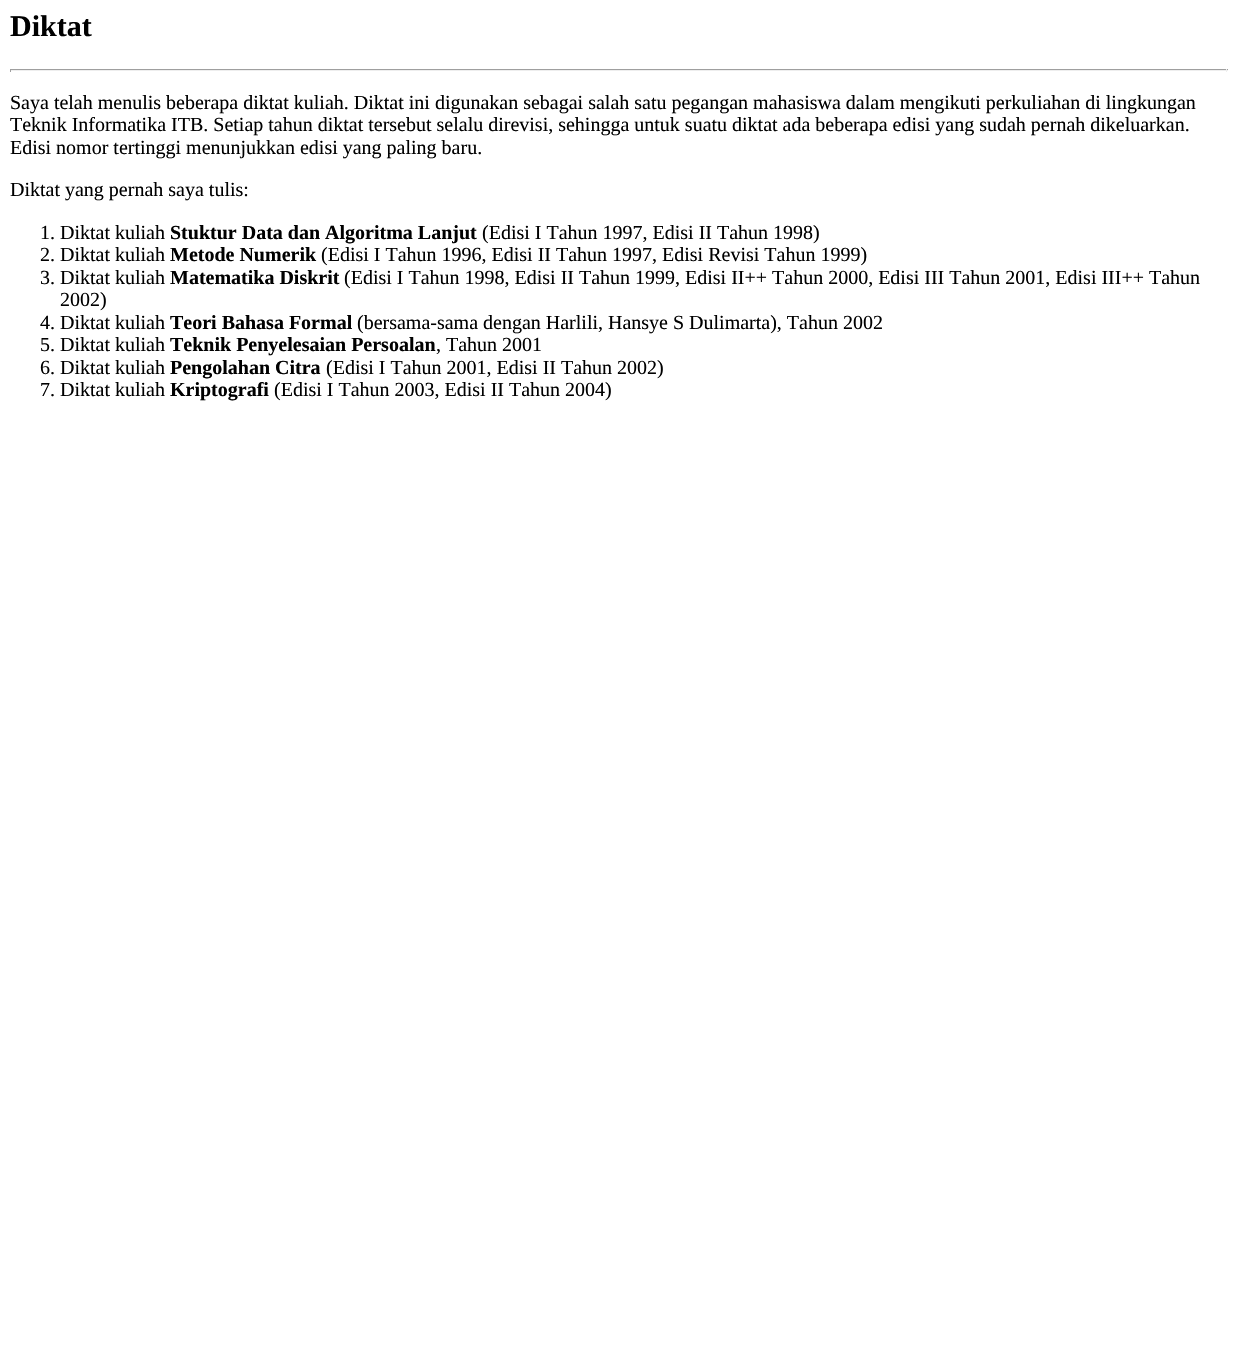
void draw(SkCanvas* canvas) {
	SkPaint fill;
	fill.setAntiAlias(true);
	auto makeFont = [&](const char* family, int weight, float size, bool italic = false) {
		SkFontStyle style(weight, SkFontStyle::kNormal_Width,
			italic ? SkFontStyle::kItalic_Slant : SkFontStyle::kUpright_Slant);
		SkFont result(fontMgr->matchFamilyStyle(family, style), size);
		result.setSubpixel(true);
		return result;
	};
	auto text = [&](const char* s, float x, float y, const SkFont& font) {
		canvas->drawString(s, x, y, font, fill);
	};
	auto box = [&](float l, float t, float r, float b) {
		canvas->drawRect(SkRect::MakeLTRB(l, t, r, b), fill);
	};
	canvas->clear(0xFFFFFFFF);
	fill.setColor(0xFF9F9F9F);
	box(10, 69, 1228, 70);
	fill.setColor(0xFFEEEEEE);
	box(1226, 69, 1227, 72);
	box(10, 70, 1228, 71);
	fill.setColor(0xFF9F9F9F);
	box(10, 69, 11, 72);
	auto font1 = makeFont("Liberation Serif", 700, 30);
	fill.setColor(0xFF000000);
	text("Diktat", 10, 36, font1);
	auto font2 = makeFont("Liberation Serif", 400, 20);
	text("Saya telah menulis beberapa diktat kuliah. Diktat ini digunakan sebagai salah satu pegangan mahasiswa dalam mengikuti perkuliahan di lingkungan", 10, 109, font2);
	text("Teknik Informatika ITB. Setiap tahun diktat tersebut selalu direvisi, sehingga untuk suatu diktat ada beberapa edisi yang sudah pernah dikeluarkan.", 10, 131, font2);
	text("Edisi nomor tertinggi menunjukkan edisi yang paling baru.", 10, 154, font2);
	text("Diktat yang pernah saya tulis:", 10, 196, font2);
	text("1. Diktat kuliah", 40, 239, font2);
	auto font3 = makeFont("Liberation Serif", 700, 20);
	text("Stuktur Data dan Algoritma Lanjut", 170, 239, font3);
	text("(Edisi I Tahun 1997, Edisi II Tahun 1998)", 482, 239, font2);
	text("2. Diktat kuliah", 40, 261, font2);
	text("Metode Numerik", 170, 261, font3);
	text("(Edisi I Tahun 1996, Edisi II Tahun 1997, Edisi Revisi Tahun 1999)", 321, 261, font2);
	text("3. Diktat kuliah", 40, 284, font2);
	text("Matematika Diskrit", 170, 284, font3);
	text("(Edisi I Tahun 1998, Edisi II Tahun 1999, Edisi II++ Tahun 2000, Edisi III Tahun 2001, Edisi III++ Tahun", 344, 284, font2);
	text("2002)", 60, 306, font2);
	text("4. Diktat kuliah", 40, 329, font2);
	text("Teori Bahasa Formal", 170, 329, font3);
	text("(bersama-sama dengan Harlili, Hansye S Dulimarta), Tahun 2002", 357, 329, font2);
	text("5. Diktat kuliah", 40, 351, font2);
	text("Teknik Penyelesaian Persoalan", 170, 351, font3);
	text(", Tahun 2001", 436, 351, font2);
	text("6. Diktat kuliah", 40, 374, font2);
	text("Pengolahan Citra", 170, 374, font3);
	text("(Edisi I Tahun 2001, Edisi II Tahun 2002)", 326, 374, font2);
	text("7. Diktat kuliah", 40, 396, font2);
	text("Kriptografi", 170, 396, font3);
	text("(Edisi I Tahun 2003, Edisi II Tahun 2004)", 274, 396, font2);
}
